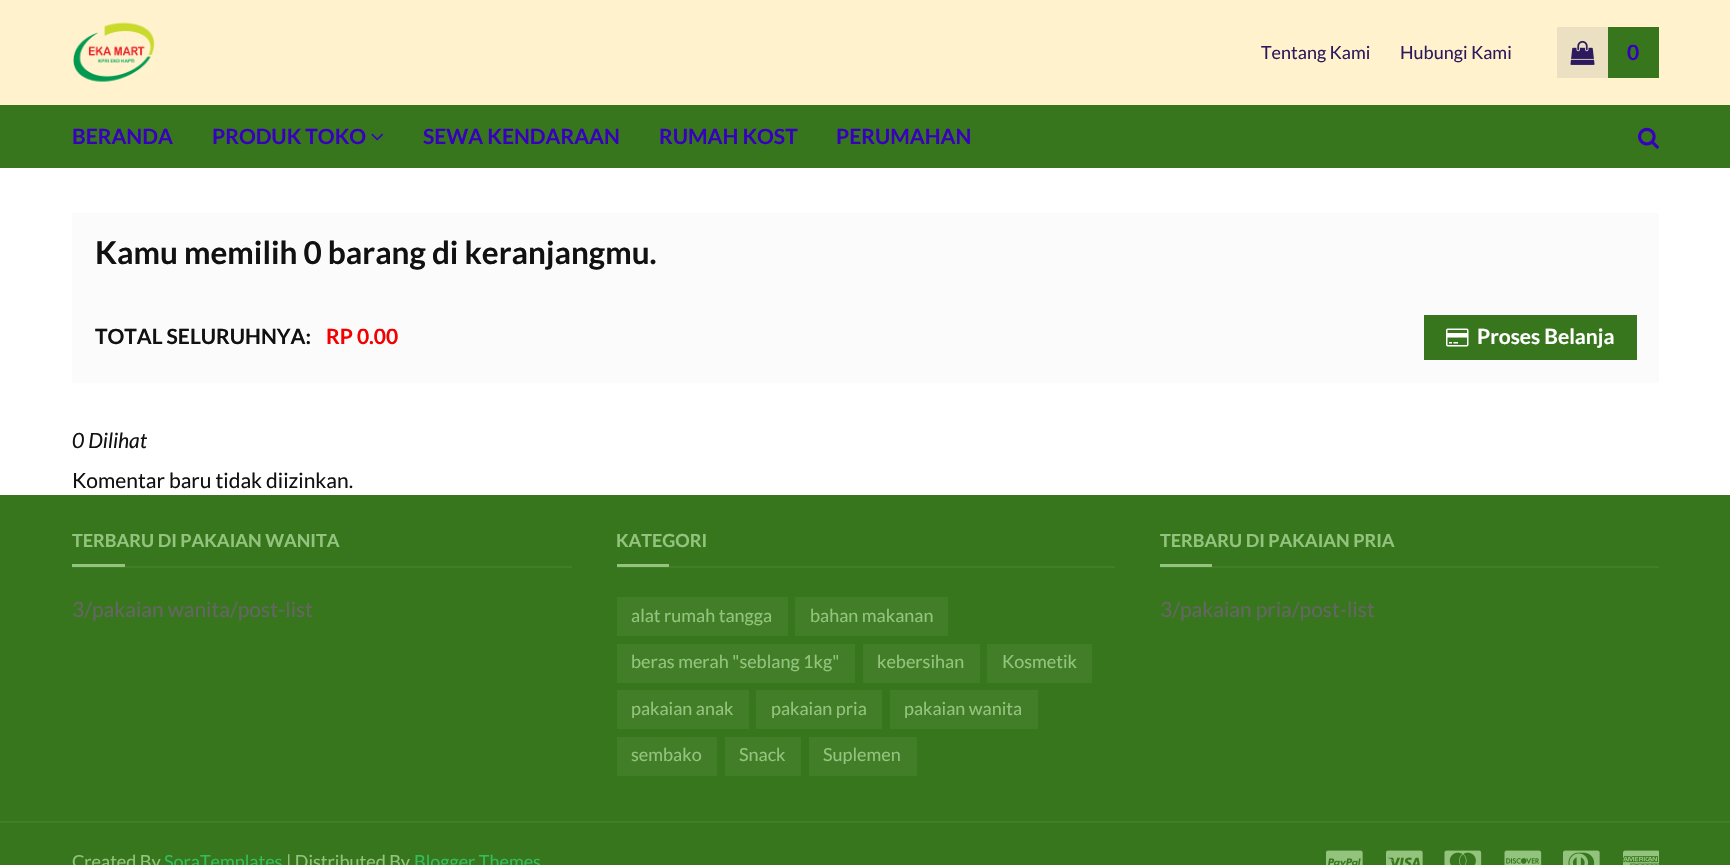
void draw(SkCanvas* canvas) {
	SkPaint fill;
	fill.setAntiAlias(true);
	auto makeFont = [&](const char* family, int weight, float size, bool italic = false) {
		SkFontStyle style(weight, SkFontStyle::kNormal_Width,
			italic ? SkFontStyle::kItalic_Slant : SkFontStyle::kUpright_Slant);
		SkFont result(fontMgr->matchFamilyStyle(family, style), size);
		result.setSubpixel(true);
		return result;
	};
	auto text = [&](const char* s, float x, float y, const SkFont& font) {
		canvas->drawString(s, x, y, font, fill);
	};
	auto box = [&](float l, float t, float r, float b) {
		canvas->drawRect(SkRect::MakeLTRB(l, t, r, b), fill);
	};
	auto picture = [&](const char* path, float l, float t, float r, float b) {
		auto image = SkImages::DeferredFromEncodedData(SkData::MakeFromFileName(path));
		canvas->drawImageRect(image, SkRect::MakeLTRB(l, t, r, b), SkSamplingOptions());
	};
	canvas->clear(0xFFFFFFFF);
	fill.setColor(0xFFFFF2CC);
	box(0, 0, 1730, 105);
	picture("image0.png", 73, 22, 155, 82);
	fill.setColor(0xFFEBE1C2);
	box(1557, 27, 1608, 78);
	picture("image1.png", 1570, 40, 1595, 65);
	fill.setColor(0xFF38761D);
	box(1608, 27, 1659, 78);
	box(0, 105, 1730, 168);
	picture("image2.png", 371, 133, 383, 141);
	picture("image3.png", 1638, 127, 1659, 149);
	fill.setColor(0xFFFBFBFB);
	box(72, 213, 1659, 383);
	fill.setColor(0xFF38761D);
	box(1424, 315, 1637, 360);
	picture("image4.png", 1446, 328, 1469, 347);
	box(0, 495, 1730, 865);
	fill.setColor(0xFF427D28);
	box(72, 566, 572, 568);
	fill.setColor(0xFF93C47D);
	box(72, 564, 125, 567);
	fill.setColor(0xFF427D28);
	box(617, 566, 1115, 568);
	fill.setColor(0xFF93C47D);
	box(617, 564, 669, 567);
	fill.setColor(0xFF427D28);
	box(617, 597, 788, 636);
	box(795, 597, 948, 636);
	box(617, 644, 855, 683);
	box(863, 644, 980, 683);
	box(987, 644, 1092, 683);
	box(617, 690, 749, 729);
	box(756, 690, 882, 729);
	box(890, 690, 1038, 729);
	box(617, 737, 717, 776);
	box(725, 737, 801, 776);
	box(809, 737, 917, 776);
	box(1160, 566, 1659, 568);
	fill.setColor(0xFF93C47D);
	box(1160, 564, 1212, 567);
	fill.setColor(0xFF427D28);
	box(0, 821, 1730, 823);
	picture("image5.png", 1326, 850, 1363, 865);
	picture("image6.png", 1386, 850, 1423, 865);
	picture("image7.png", 1444, 850, 1482, 865);
	picture("image8.png", 1504, 850, 1542, 865);
	picture("image9.png", 1563, 850, 1600, 865);
	picture("image10.png", 1623, 850, 1659, 865);
	auto font1 = makeFont("Lato", 400, 18);
	fill.setColor(0xFF2D1A5E);
	text("Tentang Kami", 1261, 59, font1);
	text("Hubungi Kami", 1400, 59, font1);
	auto font2 = makeFont("Lato", 700, 21);
	fill.setColor(0xFF3700BD);
	text("0", 1627, 60, font2);
	text("BERANDA", 72, 144, font2);
	text("PRODUK TOKO", 212, 144, font2);
	text("SEWA KENDARAAN", 423, 144, font2);
	text("RUMAH KOST", 659, 144, font2);
	text("PERUMAHAN", 836, 144, font2);
	auto font3 = makeFont("Lato", 700, 31.5f);
	fill.setColor(0xFF111111);
	text("Kamu memilih 0 barang di keranjangmu.", 95, 264, font3);
	text("TOTAL SELURUHNYA:", 95, 344, font2);
	fill.setColor(0xFFF50000);
	text("RP 0.00", 326, 344, font2);
	fill.setColor(0xFFFFFFFF);
	text("Proses Belanja", 1477, 344, font2);
	auto font4 = makeFont("Lato", 400, 21, true);
	fill.setColor(0xFF111111);
	text("0 Dilihat", 72, 448, font4);
	auto font5 = makeFont("Lato", 400, 21);
	text("Komentar baru tidak diizinkan.", 72, 488, font5);
	auto font6 = makeFont("Lato", 700, 18);
	fill.setColor(0xFF93C47D);
	text("TERBARU DI PAKAIAN WANITA", 72, 547, font6);
	fill.setColor(0xFF656565);
	text("3/pakaian wanita/post-list", 72, 617, font5);
	fill.setColor(0xFF93C47D);
	text("KATEGORI", 616, 547, font6);
	text("alat rumah tangga", 631, 622, font1);
	text("bahan makanan", 810, 622, font1);
	text("beras merah \"seblang 1kg\"", 631, 668, font1);
	text("kebersihan", 877, 668, font1);
	text("Kosmetik", 1002, 668, font1);
	text("pakaian anak", 631, 715, font1);
	text("pakaian pria", 771, 715, font1);
	text("pakaian wanita", 904, 715, font1);
	text("sembako", 631, 761, font1);
	text("Snack", 739, 761, font1);
	text("Suplemen", 823, 761, font1);
	text("TERBARU DI PAKAIAN PRIA", 1160, 547, font6);
	fill.setColor(0xFF656565);
	text("3/pakaian pria/post-list", 1160, 617, font5);
	fill.setColor(0xFF93C47D);
	text("Created By", 72, 868, font1);
	fill.setColor(0xFF34BD5C);
	text("SoraTemplates", 164, 868, font1);
	fill.setColor(0xFF93C47D);
	text("| Distributed By", 286, 868, font1);
	fill.setColor(0xFF34BD5C);
	text("Blogger Themes", 414, 868, font1);
}
